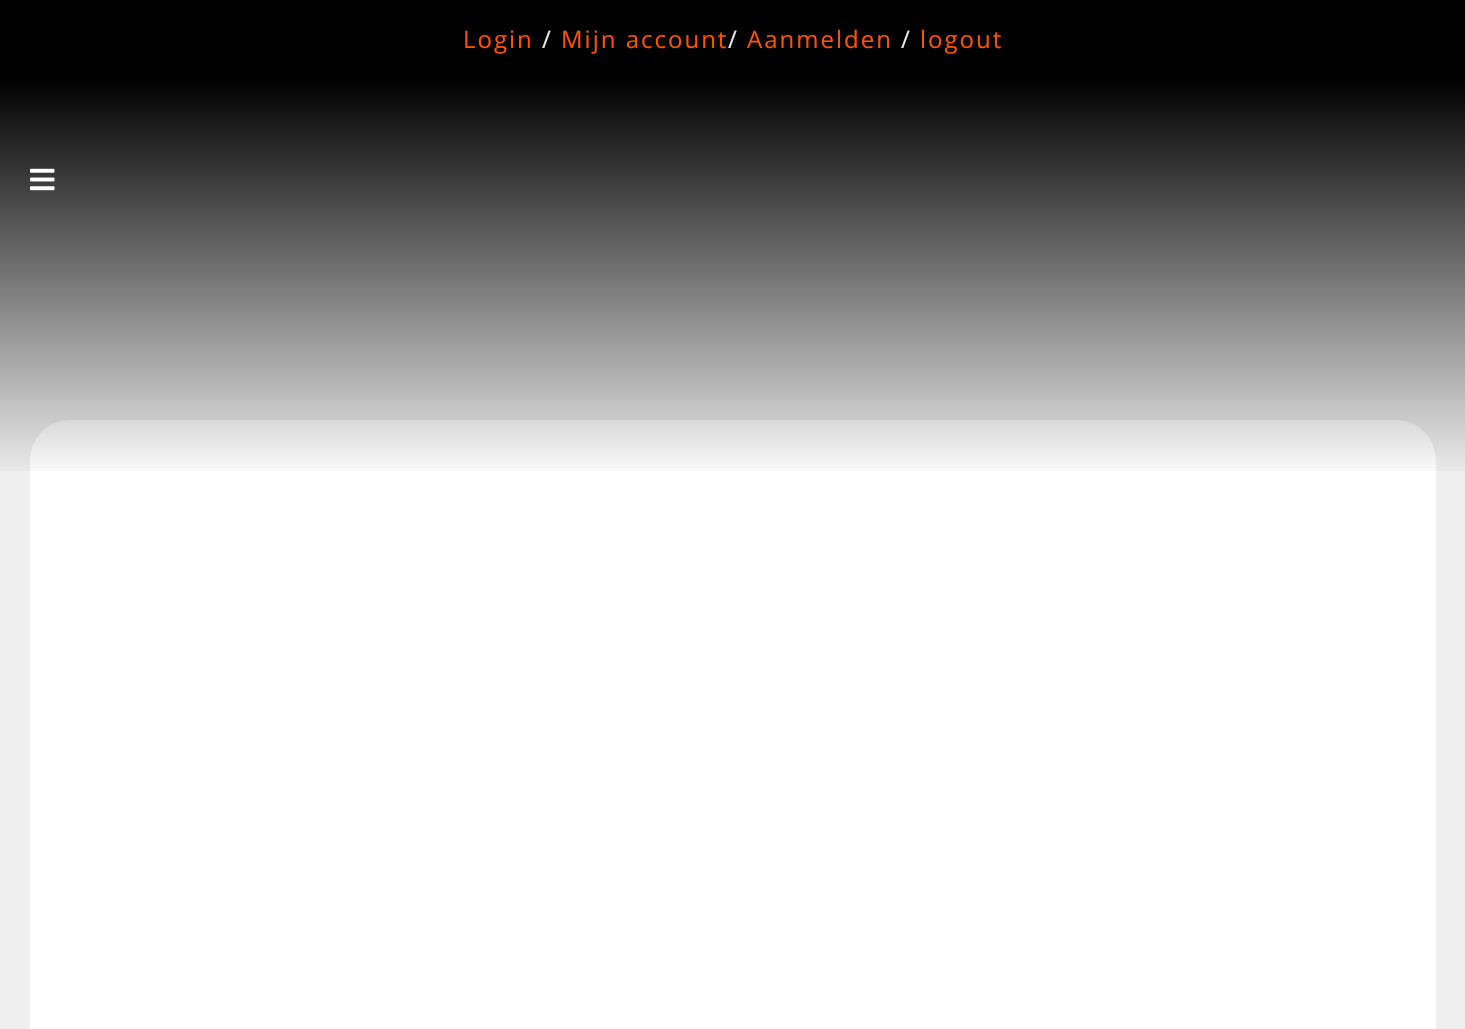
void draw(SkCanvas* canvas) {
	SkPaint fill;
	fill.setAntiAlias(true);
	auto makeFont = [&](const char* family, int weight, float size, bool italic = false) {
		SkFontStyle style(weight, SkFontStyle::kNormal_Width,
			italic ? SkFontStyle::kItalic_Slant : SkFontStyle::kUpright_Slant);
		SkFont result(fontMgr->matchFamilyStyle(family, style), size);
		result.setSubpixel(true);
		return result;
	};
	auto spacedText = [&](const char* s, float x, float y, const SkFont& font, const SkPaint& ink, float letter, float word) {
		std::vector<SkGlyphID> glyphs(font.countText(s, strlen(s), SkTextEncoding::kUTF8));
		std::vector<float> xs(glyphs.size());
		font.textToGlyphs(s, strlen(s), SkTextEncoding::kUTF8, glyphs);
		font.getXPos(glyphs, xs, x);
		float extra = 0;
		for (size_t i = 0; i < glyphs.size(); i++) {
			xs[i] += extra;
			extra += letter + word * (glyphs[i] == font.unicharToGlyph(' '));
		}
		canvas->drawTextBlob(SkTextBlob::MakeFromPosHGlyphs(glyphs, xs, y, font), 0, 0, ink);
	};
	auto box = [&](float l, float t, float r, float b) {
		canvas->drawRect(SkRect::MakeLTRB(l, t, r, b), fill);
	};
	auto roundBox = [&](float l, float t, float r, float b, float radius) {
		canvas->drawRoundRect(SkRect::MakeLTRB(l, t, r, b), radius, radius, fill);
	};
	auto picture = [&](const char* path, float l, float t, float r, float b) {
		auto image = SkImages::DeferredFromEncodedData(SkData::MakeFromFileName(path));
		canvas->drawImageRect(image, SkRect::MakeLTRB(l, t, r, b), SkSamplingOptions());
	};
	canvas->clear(0xFFEFEFEF);
	fill.setColor(0xFF000000);
	box(0, 0, 1465, 80);
	fill.setColor(0xFFFFFFFF);
	roundBox(30, 420, 1436, 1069, 40);
	{
		const SkColor colors[] = {0xFF000000, 0x00000000};
		const float stops[] = {0, 1};
		const SkPoint ends[] = {{733, 80}, {733, 480}};
		fill.setShader(SkGradientShader::MakeLinear(ends, colors, stops, 2, SkTileMode::kClamp));
		fill.setAlpha(255);
	}
	box(0, 80, 1465, 471);
	picture("image0.png", 30, 168, 55, 191);
	auto font1 = makeFont("Open Sans", 400, 24);
	fill.setShader(nullptr);
	fill.setColor(0xFFFF5200);
	spacedText("Login", 463, 48, font1, fill, 2, 0);
	fill.setColor(0xFFE8EBEF);
	spacedText("/", 542, 48, font1, fill, 2, 0);
	fill.setColor(0xFFFF5200);
	spacedText("Mijn account", 561, 48, font1, fill, 2, 0);
	fill.setColor(0xFFE8EBEF);
	spacedText("/", 728, 48, font1, fill, 2, 0);
	fill.setColor(0xFFFF5200);
	spacedText("Aanmelden", 747, 48, font1, fill, 2, 0);
	fill.setColor(0xFFE8EBEF);
	spacedText("/", 901, 48, font1, fill, 2, 0);
	fill.setColor(0xFFFF5200);
	spacedText("logout", 920, 48, font1, fill, 2, 0);
}
